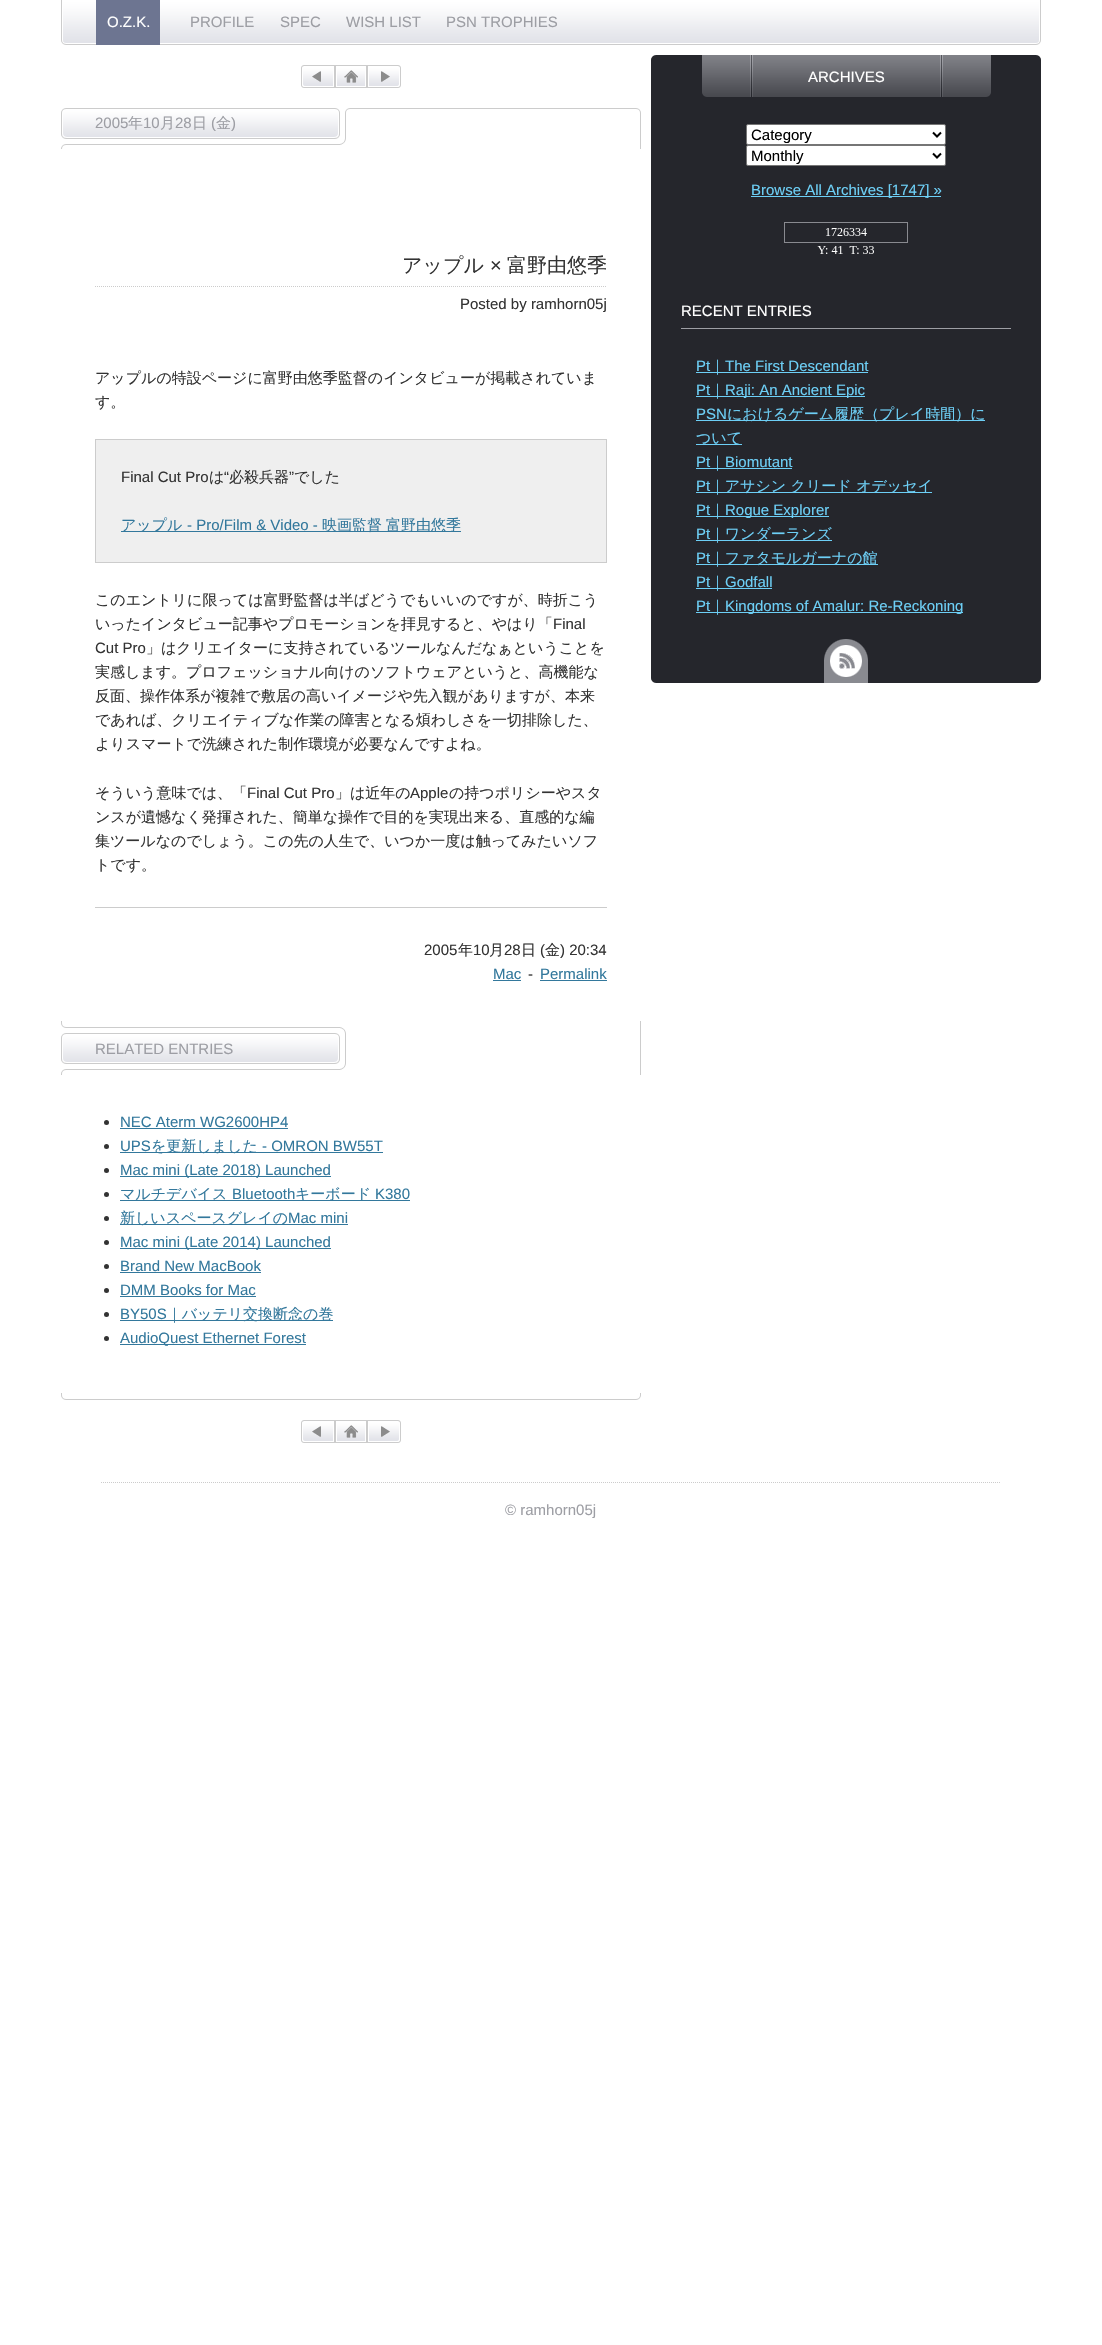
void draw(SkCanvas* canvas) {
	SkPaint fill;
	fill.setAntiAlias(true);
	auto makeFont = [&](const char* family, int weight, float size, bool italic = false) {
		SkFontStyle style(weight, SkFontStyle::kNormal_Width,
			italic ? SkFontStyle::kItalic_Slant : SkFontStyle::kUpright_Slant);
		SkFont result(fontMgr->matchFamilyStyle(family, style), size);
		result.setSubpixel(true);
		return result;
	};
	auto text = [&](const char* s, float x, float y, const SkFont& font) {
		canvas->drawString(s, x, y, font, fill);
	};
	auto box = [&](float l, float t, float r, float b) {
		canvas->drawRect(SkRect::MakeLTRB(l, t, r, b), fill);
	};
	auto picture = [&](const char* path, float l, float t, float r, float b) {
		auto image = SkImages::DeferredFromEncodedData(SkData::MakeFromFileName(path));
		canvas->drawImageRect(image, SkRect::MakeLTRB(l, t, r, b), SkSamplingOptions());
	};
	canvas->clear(0xFFFFFFFF);
	picture("image0.png", 61, 0, 1041, 45);
	fill.setColor(0xFF6D7591);
	box(96, 0, 160, 45);
	picture("image1.png", 301, 65, 335, 88);
	picture("image2.png", 335, 65, 367, 88);
	picture("image3.png", 367, 65, 401, 88);
	picture("image4.png", 61, 108, 641, 149);
	picture("image5.png", 61, 1393, 641, 1400);
	fill.setStyle(SkPaint::kStroke_Style);
	fill.setStrokeWidth(1);
	fill.setColor(0xFFCCCCCC);
	fill.setPathEffect(SkDashPathEffect::Make({{1, 1}}, 0));
	canvas->drawPath(SkPathBuilder().moveTo(95, 286.5f).lineTo(607, 286.5f).detach(), fill);
	fill.setPathEffect(nullptr);
	fill.setStyle(SkPaint::kFill_Style);
	fill.setColor(0xFFEFEFEF);
	canvas->drawRect(SkRect::MakeLTRB(95.5f, 439.5f, 606.5f, 562.5f), fill);
	fill.setStyle(SkPaint::kStroke_Style);
	fill.setColor(0xFFCCCCCC);
	canvas->drawRect(SkRect::MakeLTRB(95.5f, 439.5f, 606.5f, 562.5f), fill);
	fill.setStyle(SkPaint::kFill_Style);
	fill.setColor(0xFF33789C);
	box(121, 531, 461, 532);
	fill.setColor(0xFFCCCCCC);
	box(95, 907, 607, 908);
	fill.setColor(0xFF33789C);
	box(493, 980, 521, 981);
	box(540, 980, 607, 981);
	picture("image6.png", 61, 1021, 641, 1075);
	fill.setColor(0xFF333333);
	canvas->drawCircle(106.5f, 1122.5f, 2.5f, fill);
	fill.setColor(0xFF33789C);
	box(120, 1128, 288, 1129);
	fill.setColor(0xFF333333);
	canvas->drawCircle(106.5f, 1146.5f, 2.5f, fill);
	fill.setColor(0xFF33789C);
	box(120, 1152, 383, 1153);
	fill.setColor(0xFF333333);
	canvas->drawCircle(106.5f, 1170.5f, 2.5f, fill);
	fill.setColor(0xFF33789C);
	box(120, 1176, 331, 1177);
	fill.setColor(0xFF333333);
	canvas->drawCircle(106.5f, 1194.5f, 2.5f, fill);
	fill.setColor(0xFF33789C);
	box(120, 1200, 410, 1201);
	fill.setColor(0xFF333333);
	canvas->drawCircle(106.5f, 1218.5f, 2.5f, fill);
	fill.setColor(0xFF33789C);
	box(120, 1224, 348, 1225);
	fill.setColor(0xFF333333);
	canvas->drawCircle(106.5f, 1242.5f, 2.5f, fill);
	fill.setColor(0xFF33789C);
	box(120, 1248, 331, 1249);
	fill.setColor(0xFF333333);
	canvas->drawCircle(106.5f, 1266.5f, 2.5f, fill);
	fill.setColor(0xFF33789C);
	box(120, 1272, 261, 1273);
	fill.setColor(0xFF333333);
	canvas->drawCircle(106.5f, 1290.5f, 2.5f, fill);
	fill.setColor(0xFF33789C);
	box(120, 1296, 256, 1297);
	fill.setColor(0xFF333333);
	canvas->drawCircle(106.5f, 1314.5f, 2.5f, fill);
	fill.setColor(0xFF33789C);
	box(120, 1320, 333, 1321);
	fill.setColor(0xFF333333);
	canvas->drawCircle(106.5f, 1338.5f, 2.5f, fill);
	fill.setColor(0xFF33789C);
	box(120, 1344, 306, 1345);
	picture("image1.png", 301, 1420, 335, 1443);
	picture("image2.png", 335, 1420, 367, 1443);
	picture("image3.png", 367, 1420, 401, 1443);
	fill.setColor(0xFF25262C);
	box(651, 97, 1041, 639);
	picture("image7.png", 651, 639, 1041, 688);
	picture("image8.png", 651, 50, 1041, 97);
	fill.setColor(0xFFFFFFFF);
	canvas->drawRoundRect(SkRect::MakeLTRB(746.5f, 124.5f, 945.5f, 144.5f), 1.5f, 1.5f, fill);
	fill.setStyle(SkPaint::kStroke_Style);
	fill.setColor(0xFF767676);
	canvas->drawRoundRect(SkRect::MakeLTRB(746.5f, 124.5f, 945.5f, 144.5f), 1.5f, 1.5f, fill);
	fill.setStrokeWidth(2);
	fill.setColor(0xFF000000);
	canvas->drawPath(SkPathBuilder().moveTo(933, 132.5f).lineTo(937, 136.5f).lineTo(941, 132.5f).detach(), fill);
	fill.setStyle(SkPaint::kFill_Style);
	fill.setColor(0xFFFFFFFF);
	canvas->drawRoundRect(SkRect::MakeLTRB(746.5f, 145.5f, 945.5f, 165.5f), 1.5f, 1.5f, fill);
	fill.setStyle(SkPaint::kStroke_Style);
	fill.setStrokeWidth(1);
	fill.setColor(0xFF767676);
	canvas->drawRoundRect(SkRect::MakeLTRB(746.5f, 145.5f, 945.5f, 165.5f), 1.5f, 1.5f, fill);
	fill.setStrokeWidth(2);
	fill.setColor(0xFF000000);
	canvas->drawPath(SkPathBuilder().moveTo(933, 153.5f).lineTo(937, 157.5f).lineTo(941, 153.5f).detach(), fill);
	fill.setStyle(SkPaint::kFill_Style);
	fill.setColor(0xFF6DCFF6);
	box(751, 196, 941, 197);
	picture("image9.png", 784, 222, 908, 254);
	fill.setColor(0xFF9D9EA4);
	box(681, 328, 1011, 329);
	fill.setColor(0xFF6DCFF6);
	box(696, 372, 868, 373);
	box(696, 396, 865, 397);
	box(696, 420, 985, 421);
	box(696, 444, 742, 445);
	box(696, 468, 792, 469);
	box(696, 492, 932, 493);
	box(696, 516, 829, 517);
	box(696, 540, 832, 541);
	box(696, 564, 878, 565);
	box(696, 588, 772, 589);
	box(696, 612, 963, 613);
	picture("image10.png", 830, 645, 862, 677);
	fill.setStyle(SkPaint::kStroke_Style);
	fill.setStrokeWidth(1);
	fill.setColor(0xFFCCCCCC);
	fill.setPathEffect(SkDashPathEffect::Make({{1, 1}}, 0));
	canvas->drawPath(SkPathBuilder().moveTo(101, 1482.5f).lineTo(1001, 1482.5f).detach(), fill);
	fill.setPathEffect(nullptr);
	auto font1 = makeFont("Liberation Sans", 400, 15);
	fill.setStyle(SkPaint::kFill_Style);
	fill.setColor(0xFFFFFFFF);
	text("O.Z.K.", 107, 27, font1);
	fill.setColor(0xFF9D9EA4);
	text("PROFILE", 190, 27, font1);
	text("SPEC", 280, 27, font1);
	text("WISH LIST", 346, 27, font1);
	text("PSN TROPHIES", 446, 27, font1);
	text("2005", 95, 128, font1);
	auto font2 = makeFont("WenQuanYi Zen Hei", 500, 15);
	text("年", 128, 128, font2);
	text("10", 143, 128, font1);
	text("月", 160, 128, font2);
	text("28", 175, 128, font1);
	text("日", 192, 128, font2);
	text("(", 211, 128, font1);
	text("金", 216, 128, font2);
	text(")", 231, 128, font1);
	auto font3 = makeFont("WenQuanYi Zen Hei", 500, 20);
	fill.setColor(0xFF333333);
	text("アップル", 402, 272, font3);
	auto font4 = makeFont("Liberation Sans", 400, 20);
	text("×", 490, 272, font4);
	text("富野由悠季", 507, 272, font3);
	text("Posted by ramhorn05j", 460, 309, font1);
	text("アップルの特設ページに富野由悠季監督のインタビューが掲載されていま", 95, 383, font2);
	text("す。", 95, 407, font2);
	text("Final Cut Pro", 121, 482, font1);
	text("は", 209, 482, font2);
	text("“", 224, 482, font1);
	text("必殺兵器", 229, 482, font2);
	text("”", 289, 482, font1);
	text("でした", 294, 482, font2);
	fill.setColor(0xFF33789C);
	text("アップル", 121, 530, font2);
	text("- Pro/Film & Video -", 187, 530, font1);
	text("映画監督", 322, 530, font2);
	text("富野由悠季", 386, 530, font2);
	fill.setColor(0xFF333333);
	text("このエントリに限っては富野監督は半ばどうでもいいのですが、時折こう", 95, 605, font2);
	text("いったインタビュー記事やプロモーションを拝見すると、やはり「", 95, 629, font2);
	text("Final", 553, 629, font1);
	text("Cut Pro", 95, 653, font1);
	text("」はクリエイターに支持されているツールなんだなぁということを", 146, 653, font2);
	text("実感します。プロフェッショナル向けのソフトウェアというと、高機能な", 95, 677, font2);
	text("反面、操作体系が複雑で敷居の高いイメージや先入観がありますが、本来", 95, 701, font2);
	text("であれば、クリエイティブな作業の障害となる煩わしさを一切排除した、", 95, 725, font2);
	text("よりスマートで洗練された制作環境が必要なんですよね。", 95, 749, font2);
	text("そういう意味では、「", 95, 798, font2);
	text("Final Cut Pro", 247, 798, font1);
	text("」は近年の", 335, 798, font2);
	text("Apple", 410, 798, font1);
	text("の持つポリシーやスタ", 449, 798, font2);
	text("ンスが遺憾なく発揮された、簡単な操作で目的を実現出来る、直感的な編", 95, 822, font2);
	text("集ツールなのでしょう。この先の人生で、いつか一度は触ってみたいソフ", 95, 846, font2);
	text("トです。", 95, 870, font2);
	text("2005", 424, 955, font1);
	text("年", 458, 955, font2);
	text("10", 473, 955, font1);
	text("月", 489, 955, font2);
	text("28", 504, 955, font1);
	text("日", 521, 955, font2);
	text("(", 540, 955, font1);
	text("金", 545, 955, font2);
	text(") 20:34", 560, 955, font1);
	fill.setColor(0xFF33789C);
	text("Mac", 493, 979, font1);
	fill.setColor(0xFF333333);
	text("-", 528, 979, font1);
	fill.setColor(0xFF33789C);
	text("Permalink", 540, 979, font1);
	fill.setColor(0xFF9D9EA4);
	text("RELATED ENTRIES", 95, 1054, font1);
	fill.setColor(0xFF33789C);
	text("NEC Aterm WG2600HP4", 120, 1127, font1);
	text("UPS", 120, 1151, font1);
	text("を更新しました", 151, 1151, font2);
	text("- OMRON BW55T", 262, 1151, font1);
	text("Mac mini (Late 2018) Launched", 120, 1175, font1);
	text("マルチデバイス", 120, 1199, font2);
	text("Bluetooth", 232, 1199, font1);
	text("キーボード", 295, 1199, font2);
	text("K380", 375, 1199, font1);
	text("新しいスペースグレイの", 120, 1223, font2);
	text("Mac mini", 288, 1223, font1);
	text("Mac mini (Late 2014) Launched", 120, 1247, font1);
	text("Brand New MacBook", 120, 1271, font1);
	text("DMM Books for Mac", 120, 1295, font1);
	text("BY50S", 120, 1319, font1);
	text("｜バッテリ交換断念の巻", 167, 1319, font2);
	text("AudioQuest Ethernet Forest", 120, 1343, font1);
	fill.setColor(0xFFFFFFFF);
	text("ARCHIVES", 808, 82, font1);
	fill.setColor(0xFF000000);
	text("Category", 751, 140, font1);
	text("Monthly", 751, 161, font1);
	fill.setColor(0xFF6DCFF6);
	text("Browse All Archives [1747] »", 751, 195, font1);
	fill.setColor(0xFFFFFFFF);
	text("RECENT ENTRIES", 681, 316, font1);
	fill.setColor(0xFF6DCFF6);
	text("Pt", 696, 371, font1);
	text("｜", 710, 371, font2);
	text("The First Descendant", 725, 371, font1);
	text("Pt", 696, 395, font1);
	text("｜", 710, 395, font2);
	text("Raji: An Ancient Epic", 725, 395, font1);
	text("PSN", 696, 419, font1);
	text("におけるゲーム履歴（プレイ時間）に", 727, 419, font2);
	text("ついて", 696, 443, font2);
	text("Pt", 696, 467, font1);
	text("｜", 710, 467, font2);
	text("Biomutant", 725, 467, font1);
	text("Pt", 696, 491, font1);
	text("｜アサシン クリード オデッセイ", 710, 491, font2);
	text("Pt", 696, 515, font1);
	text("｜", 710, 515, font2);
	text("Rogue Explorer", 725, 515, font1);
	text("Pt", 696, 539, font1);
	text("｜ワンダーランズ", 710, 539, font2);
	text("Pt", 696, 563, font1);
	text("｜ファタモルガーナの館", 710, 563, font2);
	text("Pt", 696, 587, font1);
	text("｜", 710, 587, font2);
	text("Godfall", 725, 587, font1);
	text("Pt", 696, 611, font1);
	text("｜", 710, 611, font2);
	text("Kingdoms of Amalur: Re-Reckoning", 725, 611, font1);
	fill.setColor(0xFF9D9EA4);
	text("© ramhorn05j", 505, 1515, font1);
}
